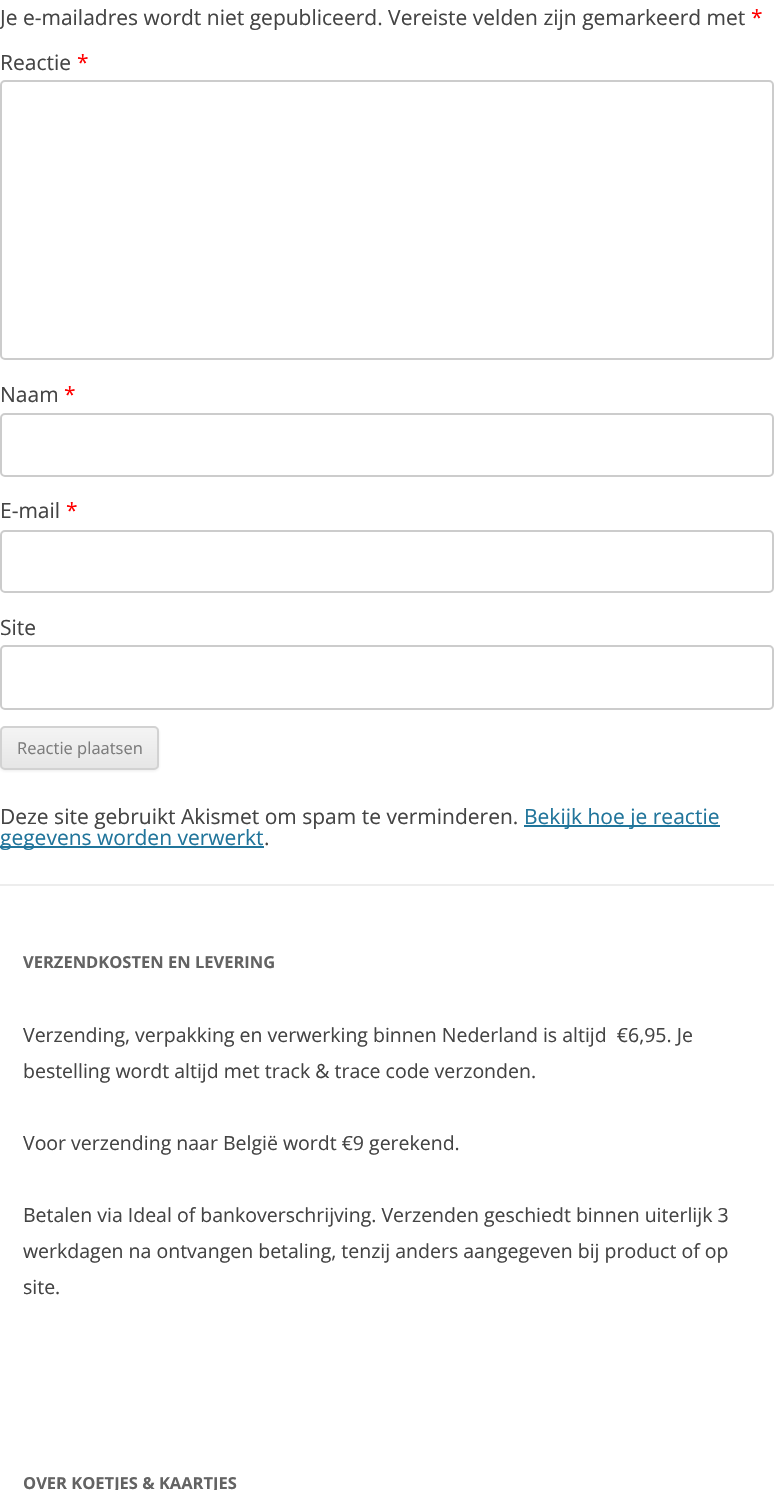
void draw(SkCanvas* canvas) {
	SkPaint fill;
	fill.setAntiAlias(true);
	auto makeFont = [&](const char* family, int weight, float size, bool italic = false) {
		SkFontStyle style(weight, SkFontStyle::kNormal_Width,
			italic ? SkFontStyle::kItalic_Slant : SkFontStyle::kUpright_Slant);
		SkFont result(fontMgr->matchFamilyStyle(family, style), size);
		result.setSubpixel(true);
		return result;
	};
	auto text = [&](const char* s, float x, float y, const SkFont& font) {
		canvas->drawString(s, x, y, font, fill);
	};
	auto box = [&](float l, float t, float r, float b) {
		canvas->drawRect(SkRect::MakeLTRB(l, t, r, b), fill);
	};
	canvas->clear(0xFFFFFFFF);
	fill.setStyle(SkPaint::kStroke_Style);
	fill.setStrokeWidth(2);
	fill.setColor(0xFFCCCCCC);
	canvas->drawRoundRect(SkRect::MakeLTRB(1, 81, 773, 359), 4, 4, fill);
	canvas->drawRoundRect(SkRect::MakeLTRB(1, 414, 773, 476), 4, 4, fill);
	canvas->drawRoundRect(SkRect::MakeLTRB(1, 531, 773, 592), 4, 4, fill);
	canvas->drawRoundRect(SkRect::MakeLTRB(1, 646, 773, 709), 4, 4, fill);
	fill.setStyle(SkPaint::kFill_Style);
	fill.setColor(0x1A404040);
	fill.setMaskFilter(SkMaskFilter::MakeBlur(kNormal_SkBlurStyle, 1.5f));
	canvas->drawRoundRect(SkRect::MakeLTRB(0, 728, 159, 771), 5, 5, fill);
	fill.setMaskFilter(nullptr);
	canvas->save();
	canvas->clipPath(SkPathBuilder().moveTo(5, 726).lineTo(154, 726).cubicTo(157, 726, 159, 728, 159, 731).lineTo(159, 765).cubicTo(159, 768, 157, 770, 154, 770).lineTo(5, 770).cubicTo(2, 770, 0, 768, 0, 765).lineTo(0, 731).cubicTo(0, 728, 2, 726, 5, 726).close().detach(), true);
	{
		const SkColor colors[] = {0xFFF4F4F4, 0xFFE6E6E6};
		const float stops[] = {0, 1};
		const SkPoint ends[] = {{80, 728}, {80, 768}};
		fill.setShader(SkGradientShader::MakeLinear(ends, colors, stops, 2, SkTileMode::kClamp));
		fill.setAlpha(255);
	}
	box(0, 728, 159, 768);
	canvas->restore();
	fill.setStyle(SkPaint::kStroke_Style);
	fill.setShader(nullptr);
	fill.setColor(0xFFD2D2D2);
	canvas->drawRoundRect(SkRect::MakeLTRB(1, 727, 158, 769), 4, 4, fill);
	fill.setStyle(SkPaint::kFill_Style);
	fill.setColor(0xFF21759B);
	box(524, 825, 720, 827);
	box(0, 846, 264, 848);
	fill.setColor(0xFFEDEDED);
	box(0, 884, 774, 886);
	auto font1 = makeFont("Open Sans", 400, 21);
	fill.setColor(0xFF444444);
	text("Je e-mailadres wordt niet gepubliceerd. Vereiste velden zijn gemarkeerd met", 0, 25, font1);
	fill.setColor(0xFFFF0000);
	text("*", 751, 25, font1);
	fill.setColor(0xFF444444);
	text("Reactie", 0, 70, font1);
	fill.setColor(0xFFFF0000);
	text("*", 77, 70, font1);
	fill.setColor(0xFF444444);
	text("Naam", 0, 402, font1);
	fill.setColor(0xFFFF0000);
	text("*", 64, 402, font1);
	fill.setColor(0xFF444444);
	text("E-mail", 0, 518, font1);
	fill.setColor(0xFFFF0000);
	text("*", 66, 518, font1);
	fill.setColor(0xFF444444);
	text("Site", 0, 635, font1);
	auto font2 = makeFont("Open Sans", 400, 16.5f);
	fill.setColor(0xFF7C7C7C);
	text("Reactie plaatsen", 17, 754, font2);
	fill.setColor(0xFF444444);
	text("Deze site gebruikt Akismet om spam te verminderen.", 0, 824, font1);
	fill.setColor(0xFF21759B);
	text("Bekijk hoe je reactie", 524, 824, font1);
	text("gegevens worden verwerkt", 0, 845, font1);
	fill.setColor(0xFF444444);
	text(".", 264, 845, font1);
	auto font3 = makeFont("Open Sans", 700, 16.5f);
	fill.setColor(0xFF636363);
	text("VERZENDKOSTEN EN LEVERING", 23, 968, font3);
	auto font4 = makeFont("Open Sans", 400, 19.5f);
	fill.setColor(0xFF444444);
	text("Verzending, verpakking en verwerking binnen Nederland is altijd  €6,95. Je", 23, 1042, font4);
	text("bestelling wordt altijd met track & trace code verzonden.", 23, 1078, font4);
	text("Voor verzending naar België wordt €9 gerekend.", 23, 1150, font4);
	text("Betalen via Ideal of bankoverschrijving. Verzenden geschiedt binnen uiterlijk 3", 23, 1222, font4);
	text("werkdagen na ontvangen betaling, tenzij anders aangegeven bij product of op", 23, 1258, font4);
	text("site.", 23, 1294, font4);
	fill.setColor(0xFF636363);
	text("OVER KOETJES & KAARTJES", 23, 1489, font3);
}
